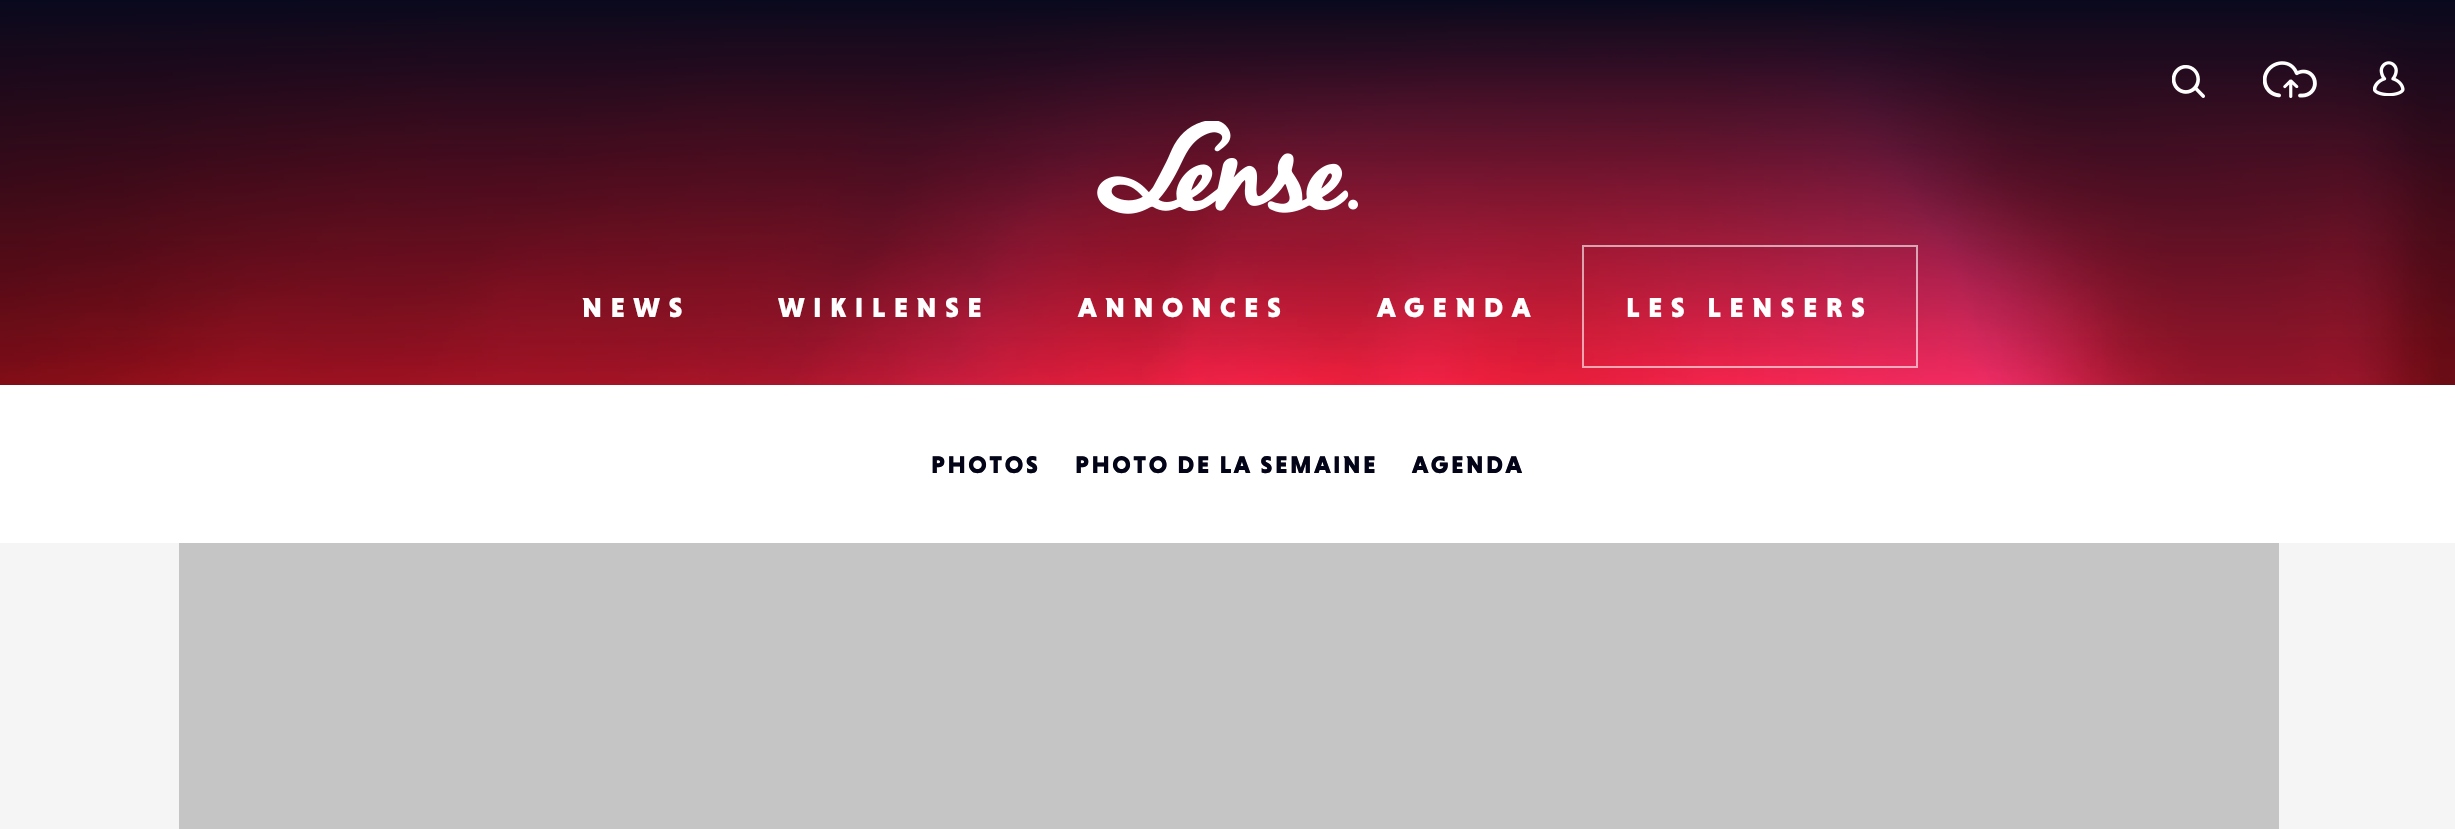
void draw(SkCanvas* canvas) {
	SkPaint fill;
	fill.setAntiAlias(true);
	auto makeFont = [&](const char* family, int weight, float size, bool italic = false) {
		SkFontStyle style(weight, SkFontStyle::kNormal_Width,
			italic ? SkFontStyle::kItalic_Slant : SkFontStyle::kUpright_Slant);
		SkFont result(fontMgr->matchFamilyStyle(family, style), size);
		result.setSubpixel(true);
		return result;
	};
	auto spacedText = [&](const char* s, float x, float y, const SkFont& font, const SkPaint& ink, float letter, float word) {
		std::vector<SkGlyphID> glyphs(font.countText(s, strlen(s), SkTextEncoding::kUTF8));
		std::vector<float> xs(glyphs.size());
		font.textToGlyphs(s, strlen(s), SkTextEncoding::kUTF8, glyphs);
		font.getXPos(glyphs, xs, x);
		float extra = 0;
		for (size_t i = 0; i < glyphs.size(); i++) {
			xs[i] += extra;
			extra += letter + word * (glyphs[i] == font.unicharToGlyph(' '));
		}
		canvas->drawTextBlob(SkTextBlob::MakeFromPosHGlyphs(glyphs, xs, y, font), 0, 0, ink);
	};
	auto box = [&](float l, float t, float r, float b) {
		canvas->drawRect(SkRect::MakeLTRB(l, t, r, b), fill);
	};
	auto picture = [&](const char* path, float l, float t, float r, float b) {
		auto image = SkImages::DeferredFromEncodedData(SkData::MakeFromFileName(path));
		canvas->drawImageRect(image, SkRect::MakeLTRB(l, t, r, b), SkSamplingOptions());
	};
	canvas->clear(0xFFF5F5F5);
	picture("image0.png", 0, 0, 2455, 385);
	picture("image1.png", 2172, 65, 2205, 98);
	picture("image2.png", 2263, 61, 2317, 98);
	picture("image3.png", 2283, 79, 2299, 98);
	picture("image4.png", 2373, 61, 2405, 96);
	picture("image5.png", 1097, 121, 1358, 214);
	fill.setStyle(SkPaint::kStroke_Style);
	fill.setStrokeWidth(2);
	fill.setColor(0x99FFFFFF);
	canvas->drawRect(SkRect::MakeLTRB(1583, 246, 1917, 367), fill);
	fill.setStyle(SkPaint::kFill_Style);
	fill.setColor(0xFFFFFFFF);
	box(0, 385, 2455, 543);
	fill.setColor(0xFFC5C5C5);
	box(179, 543, 2279, 829);
	auto font1 = makeFont("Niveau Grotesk", 900, 28);
	fill.setColor(0xFFFFFFFF);
	spacedText("NEWS", 582, 317, font1, fill, 8.4f, 0);
	spacedText("WIKILENSE", 778, 317, font1, fill, 8.4f, 0);
	spacedText("ANNONCES", 1078, 317, font1, fill, 8.4f, 0);
	spacedText("AGENDA", 1377, 317, font1, fill, 8.4f, 0);
	spacedText("LES LENSERS", 1626, 317, font1, fill, 8.4f, 0);
	auto font2 = makeFont("Niveau Grotesk", 900, 24.5f);
	fill.setColor(0xFF040418);
	spacedText("PHOTOS", 931, 473, font2, fill, 2.5f, 0);
	spacedText("PHOTO DE LA SEMAINE", 1075, 473, font2, fill, 2.5f, 0);
	spacedText("AGENDA", 1412, 473, font2, fill, 2.5f, 0);
}
